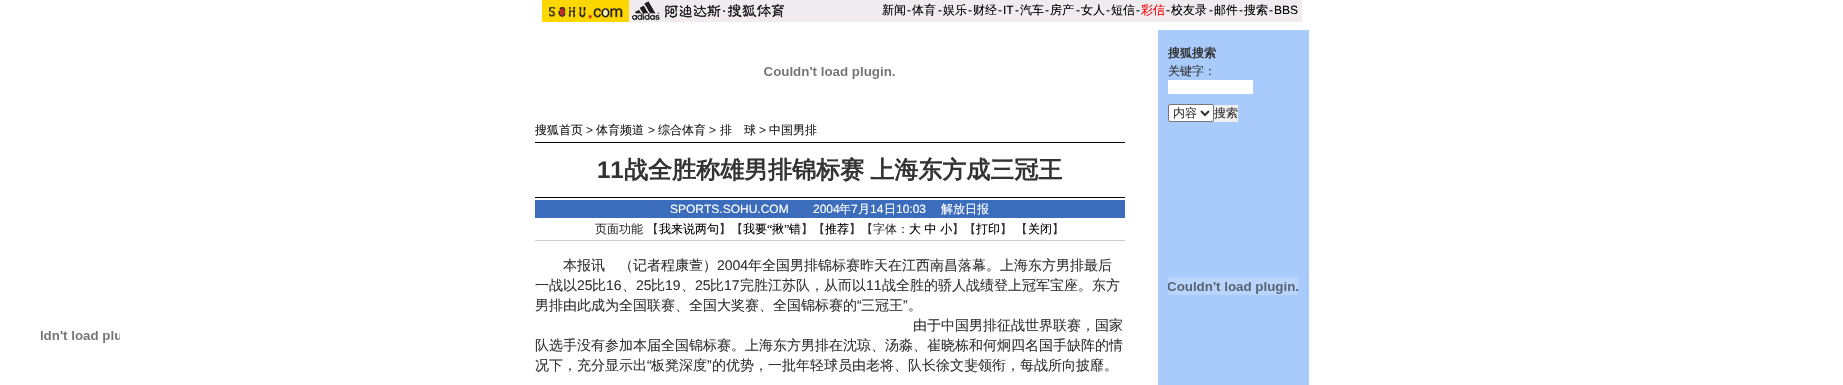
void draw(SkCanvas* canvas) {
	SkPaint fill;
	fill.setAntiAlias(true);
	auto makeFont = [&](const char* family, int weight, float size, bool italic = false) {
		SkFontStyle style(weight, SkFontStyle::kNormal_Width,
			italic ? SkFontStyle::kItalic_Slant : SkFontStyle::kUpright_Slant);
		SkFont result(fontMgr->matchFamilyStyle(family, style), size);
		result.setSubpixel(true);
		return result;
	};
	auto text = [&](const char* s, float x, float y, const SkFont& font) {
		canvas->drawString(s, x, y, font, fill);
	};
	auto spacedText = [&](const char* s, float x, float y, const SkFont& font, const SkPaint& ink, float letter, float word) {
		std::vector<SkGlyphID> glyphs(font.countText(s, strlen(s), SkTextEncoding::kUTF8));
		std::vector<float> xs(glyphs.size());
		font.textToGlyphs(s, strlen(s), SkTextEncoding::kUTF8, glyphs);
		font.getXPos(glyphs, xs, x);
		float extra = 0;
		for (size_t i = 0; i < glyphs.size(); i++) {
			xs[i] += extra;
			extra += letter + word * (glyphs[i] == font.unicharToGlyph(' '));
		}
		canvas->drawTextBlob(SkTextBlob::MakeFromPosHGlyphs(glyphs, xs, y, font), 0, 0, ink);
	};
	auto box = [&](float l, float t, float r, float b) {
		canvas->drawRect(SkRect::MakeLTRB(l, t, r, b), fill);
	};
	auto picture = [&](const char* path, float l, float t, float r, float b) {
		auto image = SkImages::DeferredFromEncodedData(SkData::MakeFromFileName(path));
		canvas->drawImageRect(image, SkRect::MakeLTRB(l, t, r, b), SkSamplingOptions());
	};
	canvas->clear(0xFFFFFFFF);
	picture("image0.png", 40, 331, 120, 343);
	picture("image1.png", 542, 0, 629, 22);
	fill.setColor(0xFFEFEBEF);
	box(629, 0, 1302, 22);
	picture("image2.png", 632, 1, 784, 20);
	fill.setColor(0xFFA8CBFB);
	box(1158, 30, 1309, 385);
	fill.setColor(0xFFFFFFFF);
	box(1168, 80, 1253, 94);
	canvas->drawRoundRect(SkRect::MakeLTRB(1168.5f, 104.5f, 1213.5f, 121.5f), 1.5f, 1.5f, fill);
	fill.setStyle(SkPaint::kStroke_Style);
	fill.setStrokeWidth(1);
	fill.setColor(0xFF767676);
	canvas->drawRoundRect(SkRect::MakeLTRB(1168.5f, 104.5f, 1213.5f, 121.5f), 1.5f, 1.5f, fill);
	fill.setStrokeWidth(2);
	fill.setColor(0xFF333333);
	canvas->drawPath(SkPathBuilder().moveTo(1201, 111).lineTo(1205, 115).lineTo(1209, 111).detach(), fill);
	fill.setStyle(SkPaint::kFill_Style);
	fill.setColor(0xFFEFEFEF);
	box(1214, 105, 1238, 122);
	picture("image3.png", 1168, 277, 1298, 295);
	picture("image4.png", 764, 67, 895, 79);
	fill.setColor(0xFF000000);
	box(535, 142, 1125, 143);
	box(535, 197, 1125, 198);
	fill.setColor(0xFF3C6DBC);
	box(535, 200, 1125, 218);
	fill.setColor(0xFFCCCCCC);
	box(535, 240, 1125, 241);
	auto font1 = makeFont("WenQuanYi Zen Hei", 500, 12);
	fill.setColor(0xFF000000);
	text("新闻", 882, 14, font1);
	auto font2 = makeFont("Liberation Sans", 400, 12);
	text("-", 907, 14, font2);
	text("体育", 912, 14, font1);
	text("-", 938, 14, font2);
	text("娱乐", 943, 14, font1);
	text("-", 968, 14, font2);
	text("财经", 973, 14, font1);
	text("-", 998, 14, font2);
	text("IT", 1003, 14, font2);
	text("-", 1015, 14, font2);
	text("汽车", 1020, 14, font1);
	text("-", 1045, 14, font2);
	text("房产", 1050, 14, font1);
	text("-", 1076, 14, font2);
	text("女人", 1081, 14, font1);
	text("-", 1106, 14, font2);
	text("短信", 1111, 14, font1);
	text("-", 1136, 14, font2);
	fill.setColor(0xFFFF0000);
	text("彩信", 1141, 14, font1);
	fill.setColor(0xFF000000);
	text("-", 1166, 14, font2);
	text("校友录", 1171, 14, font1);
	text("-", 1209, 14, font2);
	text("邮件", 1214, 14, font1);
	text("-", 1239, 14, font2);
	text("搜索", 1244, 14, font1);
	text("-", 1269, 14, font2);
	text("BBS", 1274, 14, font2);
	auto font3 = makeFont("WenQuanYi Zen Hei", 700, 12);
	fill.setColor(0xFF333333);
	text("搜狐搜索", 1168, 57, font3);
	text("关键字：", 1168, 75, font1);
	text("内容", 1173, 117, font1);
	text("搜索", 1214, 117, font1);
	fill.setColor(0xFF191919);
	text("搜狐首页", 535, 134, font1);
	fill.setColor(0xFF333333);
	text(">", 586, 134, font2);
	fill.setColor(0xFF191919);
	text("体育频道", 596, 134, font1);
	fill.setColor(0xFF333333);
	text(">", 648, 134, font2);
	fill.setColor(0xFF191919);
	text("综合体育", 658, 134, font1);
	fill.setColor(0xFF333333);
	text(">", 709, 134, font2);
	fill.setColor(0xFF191919);
	text("排　球", 720, 134, font1);
	fill.setColor(0xFF333333);
	text(">", 759, 134, font2);
	fill.setColor(0xFF191919);
	text("中国男排", 769, 134, font1);
	auto font4 = makeFont("Liberation Sans", 700, 24);
	fill.setColor(0xFF333333);
	text("11", 597, 178, font4);
	auto font5 = makeFont("WenQuanYi Zen Hei", 700, 24);
	spacedText("战全胜称雄男排锦标赛 上海东方成三冠王", 624, 178, font5, fill, 0, -1);
	fill.setColor(0xFFFFFFFF);
	text("SPORTS.SOHU.COM", 670, 213, font2);
	text("2004", 813, 213, font2);
	text("年", 839, 213, font1);
	text("7", 851, 213, font2);
	text("月", 858, 213, font1);
	text("14", 870, 213, font2);
	text("日", 884, 213, font1);
	text("10:03", 896, 213, font2);
	text("解放日报", 941, 213, font1);
	fill.setColor(0xFF333333);
	text("页面功能 【", 595, 233, font1);
	fill.setColor(0xFF000000);
	text("我来说两句", 659, 233, font1);
	fill.setColor(0xFF333333);
	text("】【", 719, 233, font1);
	fill.setColor(0xFF000000);
	text("我要", 743, 233, font1);
	auto font6 = makeFont("Liberation Serif", 400, 12);
	text("“", 767, 233, font6);
	text("揪", 772, 233, font1);
	text("”", 784, 233, font6);
	text("错", 789, 233, font1);
	fill.setColor(0xFF333333);
	text("】【", 801, 233, font1);
	fill.setColor(0xFF000000);
	text("推荐", 825, 233, font1);
	fill.setColor(0xFF333333);
	text("】【字体：", 849, 233, font1);
	fill.setColor(0xFF000000);
	text("大 中 小", 909, 233, font1);
	fill.setColor(0xFF333333);
	text("】【", 952, 233, font1);
	fill.setColor(0xFF000000);
	text("打印", 976, 233, font1);
	fill.setColor(0xFF333333);
	text("】 【", 1000, 233, font1);
	fill.setColor(0xFF000000);
	text("关闭", 1028, 233, font1);
	fill.setColor(0xFF333333);
	text("】", 1052, 233, font1);
	auto font7 = makeFont("WenQuanYi Zen Hei", 500, 14);
	text("本报讯　（记者程康萱）", 563, 270, font7);
	auto font8 = makeFont("Liberation Sans", 400, 14);
	text("2004", 717, 270, font8);
	text("年全国男排锦标赛昨天在江西南昌落幕。上海东方男排最后", 748, 270, font7);
	text("一战以", 535, 290, font7);
	text("25", 577, 290, font8);
	text("比", 592, 290, font7);
	text("16", 606, 290, font8);
	text("、", 622, 290, font7);
	text("25", 636, 290, font8);
	text("比", 651, 290, font7);
	text("19", 665, 290, font8);
	text("、", 681, 290, font7);
	text("25", 695, 290, font8);
	text("比", 710, 290, font7);
	text("17", 724, 290, font8);
	text("完胜江苏队，从而以", 740, 290, font7);
	text("11", 866, 290, font8);
	text("战全胜的骄人战绩登上冠军宝座。东方", 882, 290, font7);
	text("男排由此成为全国联赛、全国大奖赛、全国锦标赛的", 535, 310, font7);
	text("“", 857, 310, font8);
	text("三冠王", 861, 310, font7);
	text("”", 903, 310, font8);
	text("。", 908, 310, font7);
	text("由于中国男排征战世界联赛，国家", 913, 330, font7);
	text("队选手没有参加本届全国锦标赛。上海东方男排在沈琼、汤淼、崔晓栋和何炯四名国手缺阵的情", 535, 350, font7);
	text("况下，充分显示出", 535, 370, font7);
	text("“", 647, 370, font8);
	text("板凳深度", 651, 370, font7);
	text("”", 707, 370, font8);
	text("的优势，一批年轻球员由老将、队长徐文斐领衔，每战所向披靡。", 712, 370, font7);
}
